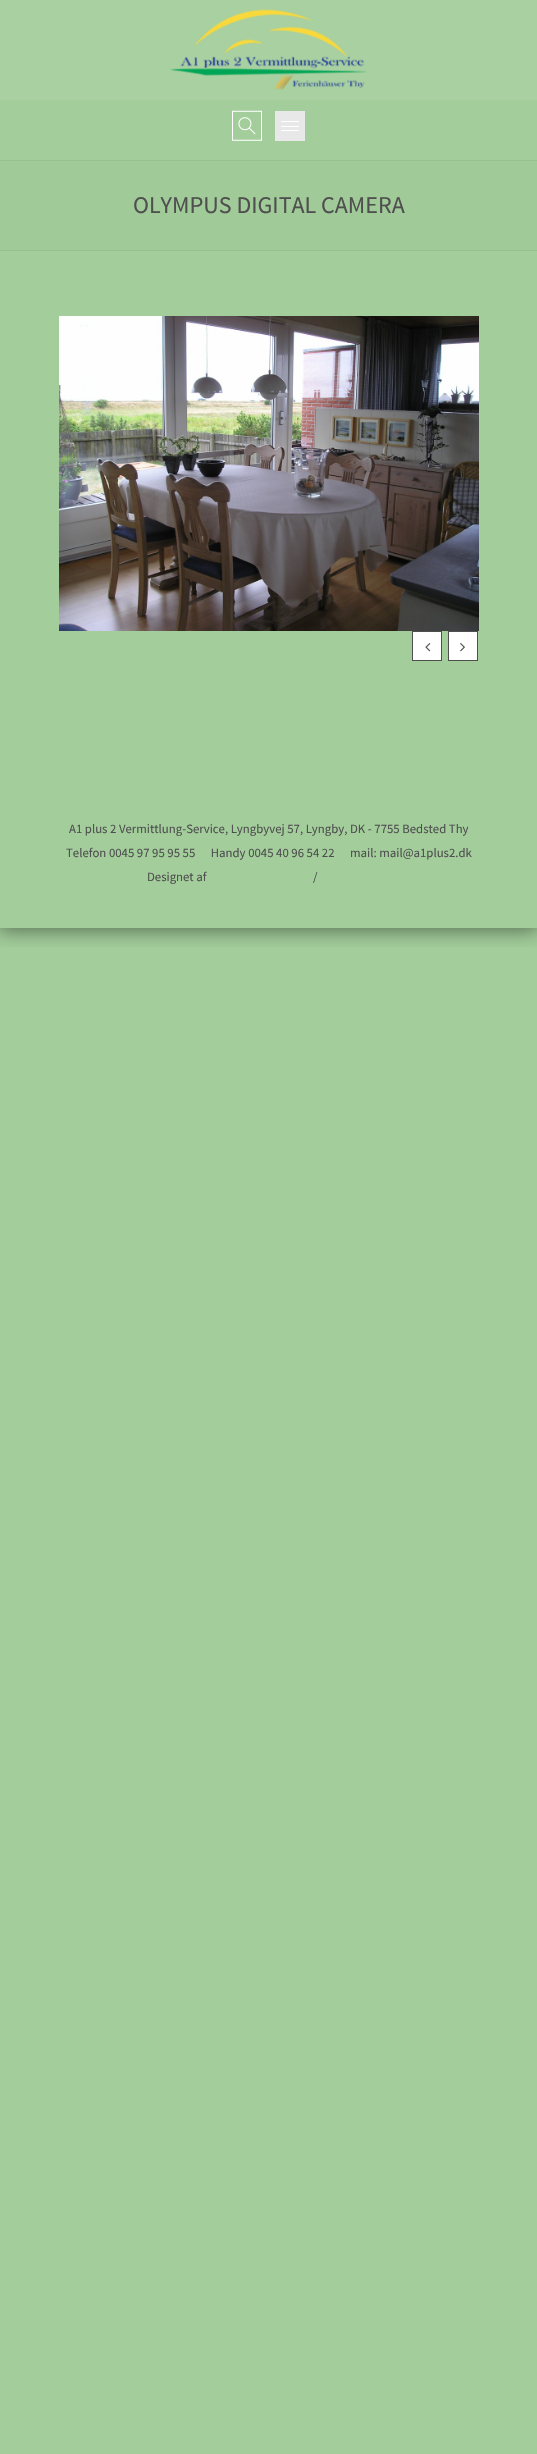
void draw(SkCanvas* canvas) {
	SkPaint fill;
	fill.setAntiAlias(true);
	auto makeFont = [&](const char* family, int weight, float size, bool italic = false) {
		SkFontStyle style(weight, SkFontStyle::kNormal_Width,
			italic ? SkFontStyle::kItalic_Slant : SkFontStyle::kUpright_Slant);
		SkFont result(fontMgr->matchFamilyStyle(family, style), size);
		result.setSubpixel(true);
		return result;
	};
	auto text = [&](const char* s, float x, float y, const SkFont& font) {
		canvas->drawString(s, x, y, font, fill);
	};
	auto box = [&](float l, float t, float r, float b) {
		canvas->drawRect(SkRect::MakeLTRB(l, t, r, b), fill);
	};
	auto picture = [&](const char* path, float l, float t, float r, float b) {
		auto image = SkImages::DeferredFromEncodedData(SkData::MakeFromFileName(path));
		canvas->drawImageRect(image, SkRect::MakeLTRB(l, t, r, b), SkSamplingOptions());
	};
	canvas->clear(0xFFA3CE9B);
	canvas->save();
	canvas->clipRect(SkRect::MakeLTRB(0, 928, 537, 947));
	fill.setColor(0x80000000);
	fill.setMaskFilter(SkMaskFilter::MakeBlur(kNormal_SkBlurStyle, 10));
	canvas->drawRect(SkRect::MakeLTRB(-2, -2, 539, 930), fill);
	fill.setMaskFilter(nullptr);
	canvas->restore();
	fill.setColor(0xFFA8D0A0);
	box(0, 0, 537, 100);
	picture("image0.png", 170, 9, 367, 90);
	picture("image1.png", 232, 110, 262, 141);
	fill.setColor(0xFFE8E8E8);
	box(275, 111, 305, 141);
	fill.setColor(0xFFFFFFFF);
	box(281, 121, 299, 122);
	box(281, 126, 299, 127);
	box(281, 130, 299, 131);
	fill.setColor(0xFFA0CA98);
	box(0, 161, 537, 250);
	fill.setColor(0xFF98C090);
	box(0, 160, 537, 161);
	box(0, 250, 537, 251);
	picture("image2.png", 59, 316, 479, 631);
	fill.setColor(0xFFFFFFFF);
	canvas->drawRect(SkRect::MakeLTRB(412.5f, 631.5f, 441.5f, 660.5f), fill);
	fill.setStyle(SkPaint::kStroke_Style);
	fill.setStrokeWidth(1);
	fill.setColor(0xFF4F4F4F);
	canvas->drawRect(SkRect::MakeLTRB(412.5f, 631.5f, 441.5f, 660.5f), fill);
	picture("image3.png", 425, 643, 431, 652);
	fill.setStyle(SkPaint::kFill_Style);
	fill.setColor(0xFFFFFFFF);
	canvas->drawRect(SkRect::MakeLTRB(448.5f, 631.5f, 477.5f, 660.5f), fill);
	fill.setStyle(SkPaint::kStroke_Style);
	fill.setColor(0xFF4F4F4F);
	canvas->drawRect(SkRect::MakeLTRB(448.5f, 631.5f, 477.5f, 660.5f), fill);
	picture("image4.png", 460, 643, 465, 652);
	auto font1 = makeFont("Source Sans Pro", 400, 24);
	fill.setStyle(SkPaint::kFill_Style);
	text("OLYMPUS DIGITAL CAMERA", 133, 213, font1);
	auto font2 = makeFont("Source Sans Pro", 400, 12.75f);
	text("A1 plus 2 Vermittlung-Service, Lyngbyvej 57, Lyngby, DK - 7755 Bedsted Thy", 69, 833, font2);
	text("Telefon 0045 97 95 95 55      Handy 0045 40 96 54 22      mail: mail@a1plus2.dk", 66, 857, font2);
	text("Designet af", 147, 881, font2);
	text("/", 313, 881, font2);
}
